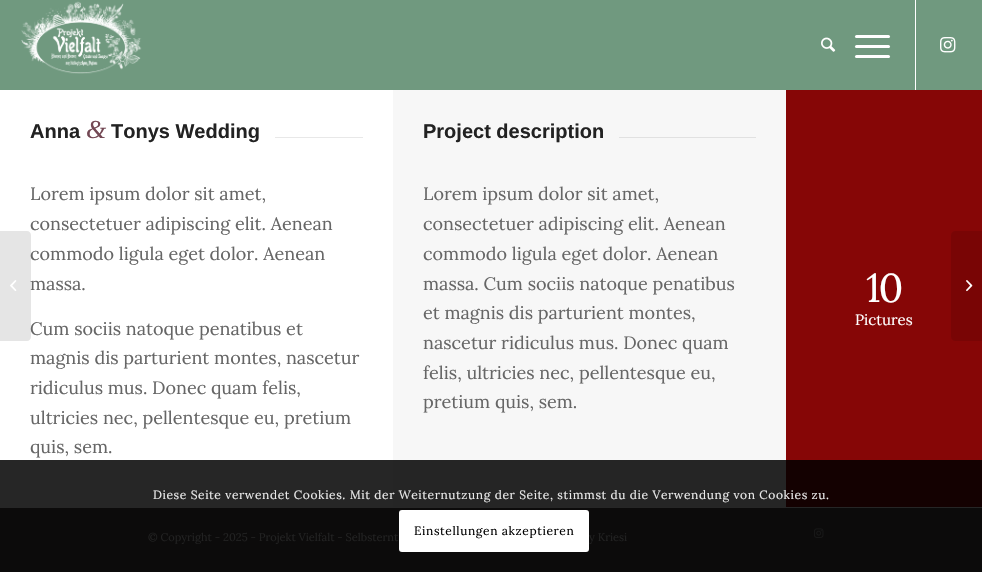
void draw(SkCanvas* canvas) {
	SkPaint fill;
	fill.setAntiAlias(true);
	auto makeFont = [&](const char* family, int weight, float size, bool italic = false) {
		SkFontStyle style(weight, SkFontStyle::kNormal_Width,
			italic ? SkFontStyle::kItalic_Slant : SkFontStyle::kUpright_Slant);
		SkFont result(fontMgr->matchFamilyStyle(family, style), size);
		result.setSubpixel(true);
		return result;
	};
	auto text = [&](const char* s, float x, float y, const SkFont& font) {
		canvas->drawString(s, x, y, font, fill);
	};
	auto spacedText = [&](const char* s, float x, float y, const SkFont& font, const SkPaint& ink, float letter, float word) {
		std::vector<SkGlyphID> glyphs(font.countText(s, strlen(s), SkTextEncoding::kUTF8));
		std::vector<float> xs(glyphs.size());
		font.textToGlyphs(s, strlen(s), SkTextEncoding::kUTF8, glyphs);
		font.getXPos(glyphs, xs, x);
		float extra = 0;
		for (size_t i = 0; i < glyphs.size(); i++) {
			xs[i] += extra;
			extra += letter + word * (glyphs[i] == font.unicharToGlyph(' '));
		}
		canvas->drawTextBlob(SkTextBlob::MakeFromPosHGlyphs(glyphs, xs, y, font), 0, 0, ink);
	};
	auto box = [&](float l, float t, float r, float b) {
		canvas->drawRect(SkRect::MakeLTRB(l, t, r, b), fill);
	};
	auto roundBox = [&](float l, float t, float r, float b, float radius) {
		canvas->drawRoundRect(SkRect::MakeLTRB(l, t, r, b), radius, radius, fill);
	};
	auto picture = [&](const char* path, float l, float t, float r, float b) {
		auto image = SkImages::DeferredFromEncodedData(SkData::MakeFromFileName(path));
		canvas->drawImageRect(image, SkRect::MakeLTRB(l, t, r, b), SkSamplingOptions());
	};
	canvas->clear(0xFF0C0B0B);
	fill.setColor(0xFF70997F);
	box(0, 0, 982, 90);
	picture("image0.png", 21, 1, 142, 74);
	fill.setColor(0xFFFFFFFF);
	box(915, 0, 916, 90);
	picture("image1.png", 821, 37, 836, 52);
	roundBox(855, 45, 890, 48, 1.5f);
	roundBox(855, 35, 890, 38, 1.5f);
	roundBox(855, 55, 890, 58, 1.5f);
	picture("image2.png", 940, 37, 956, 53);
	box(0, 90, 393, 460);
	fill.setColor(0x1A000000);
	canvas->drawPath(SkPathBuilder().moveTo(0, 231).lineTo(27, 231).cubicTo(29, 231, 31, 233, 31, 235).lineTo(31, 337).cubicTo(31, 339, 29, 341, 27, 341).lineTo(0, 341).close().detach(), fill);
	picture("image3.png", 10, 280, 17, 291);
	fill.setColor(0xFF262626);
	box(0, 460, 393, 507);
	fill.setColor(0xFFE8E8E8);
	box(275, 137, 363, 138);
	fill.setColor(0xFFF7F7F7);
	box(393, 90, 786, 460);
	fill.setColor(0xFF252525);
	box(393, 460, 786, 507);
	fill.setColor(0xFFE1E1E1);
	box(619, 137, 756, 138);
	fill.setColor(0xFF860606);
	box(786, 90, 982, 460);
	fill.setColor(0xFF140101);
	box(786, 460, 982, 507);
	fill.setColor(0xFF262626);
	box(0, 507, 982, 508);
	picture("image4.png", 814, 528, 824, 538);
	fill.setColor(0xFF790505);
	canvas->drawPath(SkPathBuilder().moveTo(955, 231).lineTo(982, 231).lineTo(982, 341).lineTo(955, 341).cubicTo(953, 341, 951, 339, 951, 337).lineTo(951, 235).cubicTo(951, 233, 953, 231, 955, 231).close().detach(), fill);
	picture("image5.png", 966, 280, 973, 292);
	auto font1 = makeFont("Liberation Sans", 700, 20);
	fill.setColor(0xFF222222);
	text("Anna", 30, 138, font1);
	auto font2 = makeFont("Liberation Serif", 400, 26, true);
	fill.setColor(0xFF734854);
	text("&", 86, 138, font2);
	fill.setColor(0xFF222222);
	text("Tonys Wedding", 111, 138, font1);
	auto font3 = makeFont("Lora", 400, 18);
	fill.setColor(0xFF666666);
	text("Lorem ipsum dolor sit amet,", 30, 200, font3);
	text("consectetuer adipiscing elit. Aenean", 30, 230, font3);
	text("commodo ligula eget dolor. Aenean", 30, 260, font3);
	text("massa.", 30, 290, font3);
	text("Cum sociis natoque penatibus et", 30, 335, font3);
	text("magnis dis parturient montes, nascetur", 30, 364, font3);
	text("ridiculus mus. Donec quam felis,", 30, 394, font3);
	text("ultricies nec, pellentesque eu, pretium", 30, 424, font3);
	text("quis, sem.", 30, 453, font3);
	fill.setColor(0xFF222222);
	text("Project description", 423, 138, font1);
	fill.setColor(0xFF666666);
	text("Lorem ipsum dolor sit amet,", 423, 200, font3);
	text("consectetuer adipiscing elit. Aenean", 423, 230, font3);
	text("commodo ligula eget dolor. Aenean", 423, 260, font3);
	text("massa. Cum sociis natoque penatibus", 423, 290, font3);
	text("et magnis dis parturient montes,", 423, 319, font3);
	text("nascetur ridiculus mus. Donec quam", 423, 349, font3);
	text("felis, ultricies nec, pellentesque eu,", 423, 379, font3);
	text("pretium quis, sem.", 423, 408, font3);
	auto font4 = makeFont("Lora", 400, 40);
	fill.setColor(0xFFFFFFFF);
	spacedText("10", 866, 302, font4, fill, -2, 0);
	auto font5 = makeFont("Lora", 400, 15);
	text("Pictures", 855, 325, font5);
	auto font6 = makeFont("Lora", 400, 11);
	fill.setColor(0xFF222222);
	text("© Copyright - 2025 - Projekt Vielfalt - Selbsternt", 148, 541, font6);
	text("y Kriesi", 589, 541, font6);
	auto font7 = makeFont("Lora", 400, 12);
	fill.setColor(0xFFE9E9E9);
	spacedText("Diese Seite verwendet Cookies. Mit der Weiternutzung der Seite, stimmst du die Verwendung von Cookies zu.", 153, 499, font7, fill, 0.6f, 0);
	fill.setColor(0xFFFFFFFF);
	roundBox(399, 510, 589, 552, 3);
	fill.setColor(0xFF000000);
	spacedText("Einstellungen akzeptieren", 414, 535, font7, fill, 0.6f, 0);
}
